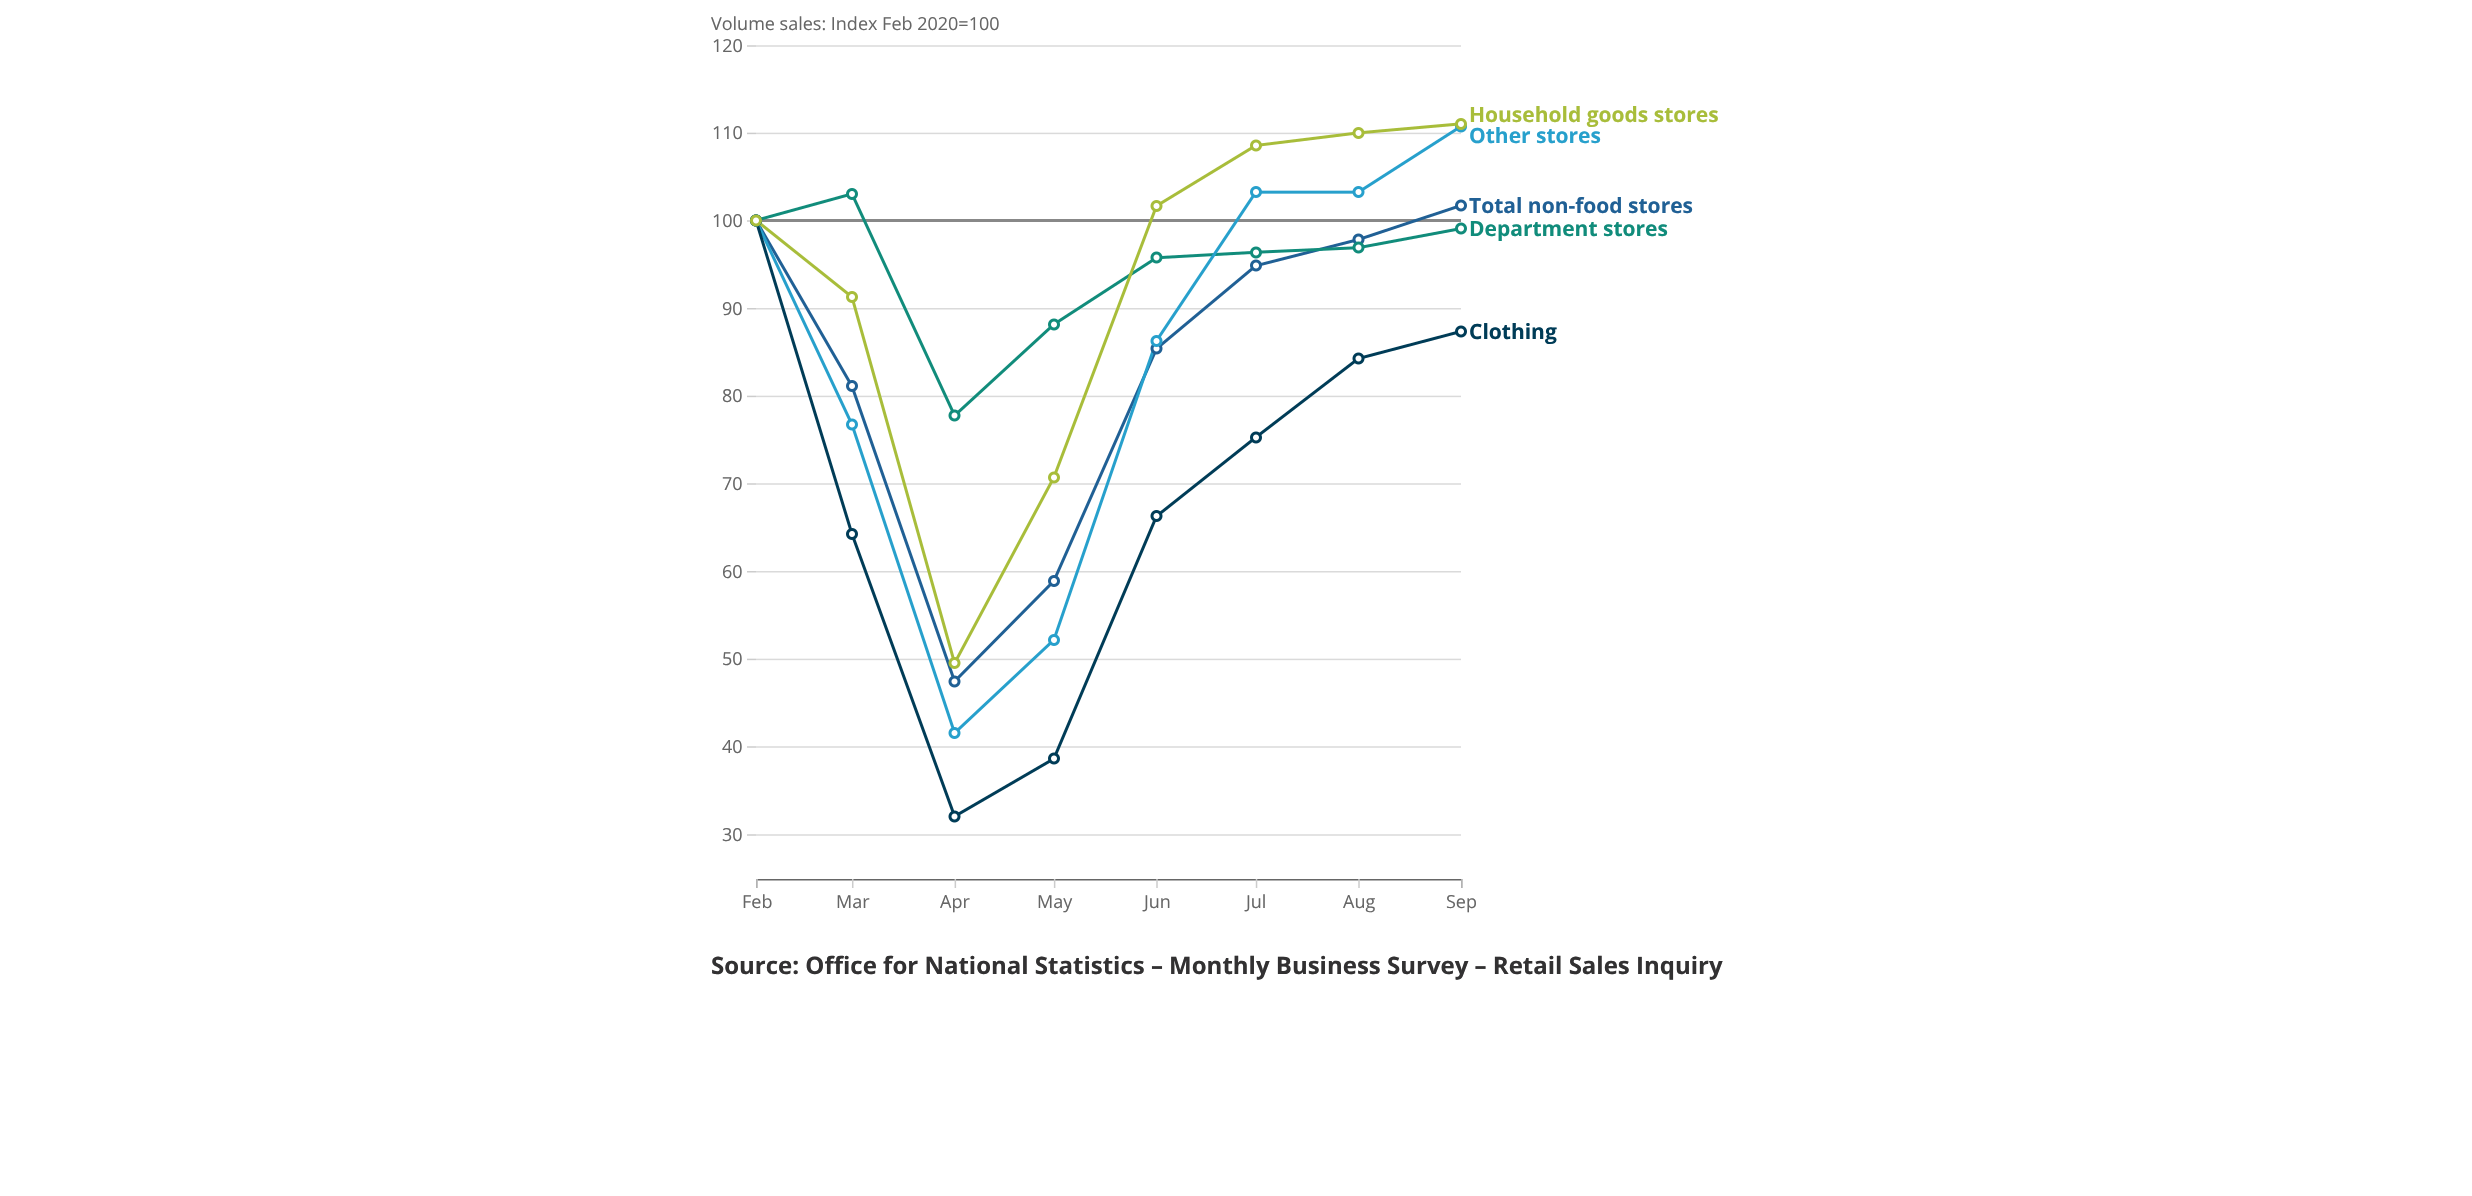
void draw(SkCanvas* canvas) {
	SkPaint fill;
	fill.setAntiAlias(true);
	auto makeFont = [&](const char* family, int weight, float size, bool italic = false) {
		SkFontStyle style(weight, SkFontStyle::kNormal_Width,
			italic ? SkFontStyle::kItalic_Slant : SkFontStyle::kUpright_Slant);
		SkFont result(fontMgr->matchFamilyStyle(family, style), size);
		result.setSubpixel(true);
		return result;
	};
	auto text = [&](const char* s, float x, float y, const SkFont& font) {
		canvas->drawString(s, x, y, font, fill);
	};
	auto picture = [&](const char* path, float l, float t, float r, float b) {
		auto image = SkImages::DeferredFromEncodedData(SkData::MakeFromFileName(path));
		canvas->drawImageRect(image, SkRect::MakeLTRB(l, t, r, b), SkSamplingOptions());
	};
	canvas->clear(0xFFFFFFFF);
	picture("image0.png", 747, 45, 1467, 888);
	auto font1 = makeFont("Open Sans", 400, 18);
	fill.setColor(0xFF666666);
	text("Volume sales: Index Feb 2020=100", 711, 30, font1);
	text("120", 712, 52, font1);
	auto font2 = makeFont("Open Sans", 700, 21);
	fill.setColor(0xFFA8BD3A);
	text("Household goods stores", 1469, 122, font2);
	fill.setColor(0xFF666666);
	text("110", 712, 139, font1);
	fill.setColor(0xFF27A0CC);
	text("Other stores", 1469, 143, font2);
	fill.setColor(0xFF206095);
	text("Total non-food stores", 1469, 213, font2);
	fill.setColor(0xFF666666);
	text("100", 712, 227, font1);
	fill.setColor(0xFF118C7B);
	text("Department stores", 1469, 236, font2);
	fill.setColor(0xFF666666);
	text("90", 722, 315, font1);
	fill.setColor(0xFF003C57);
	text("Clothing", 1469, 339, font2);
	fill.setColor(0xFF666666);
	text("80", 722, 402, font1);
	text("70", 722, 490, font1);
	text("60", 722, 578, font1);
	text("50", 722, 665, font1);
	text("40", 722, 753, font1);
	text("30", 722, 841, font1);
	text("Feb", 742, 908, font1);
	text("Mar", 836, 908, font1);
	text("Apr", 940, 908, font1);
	text("May", 1037, 908, font1);
	text("Jun", 1144, 908, font1);
	text("Jul", 1246, 908, font1);
	text("Aug", 1343, 908, font1);
	text("Sep", 1446, 908, font1);
	auto font3 = makeFont("Open Sans", 700, 24);
	fill.setColor(0xFF323132);
	text("Source: Office for National Statistics – Monthly Business Survey – Retail Sales Inquiry", 711, 974, font3);
}
